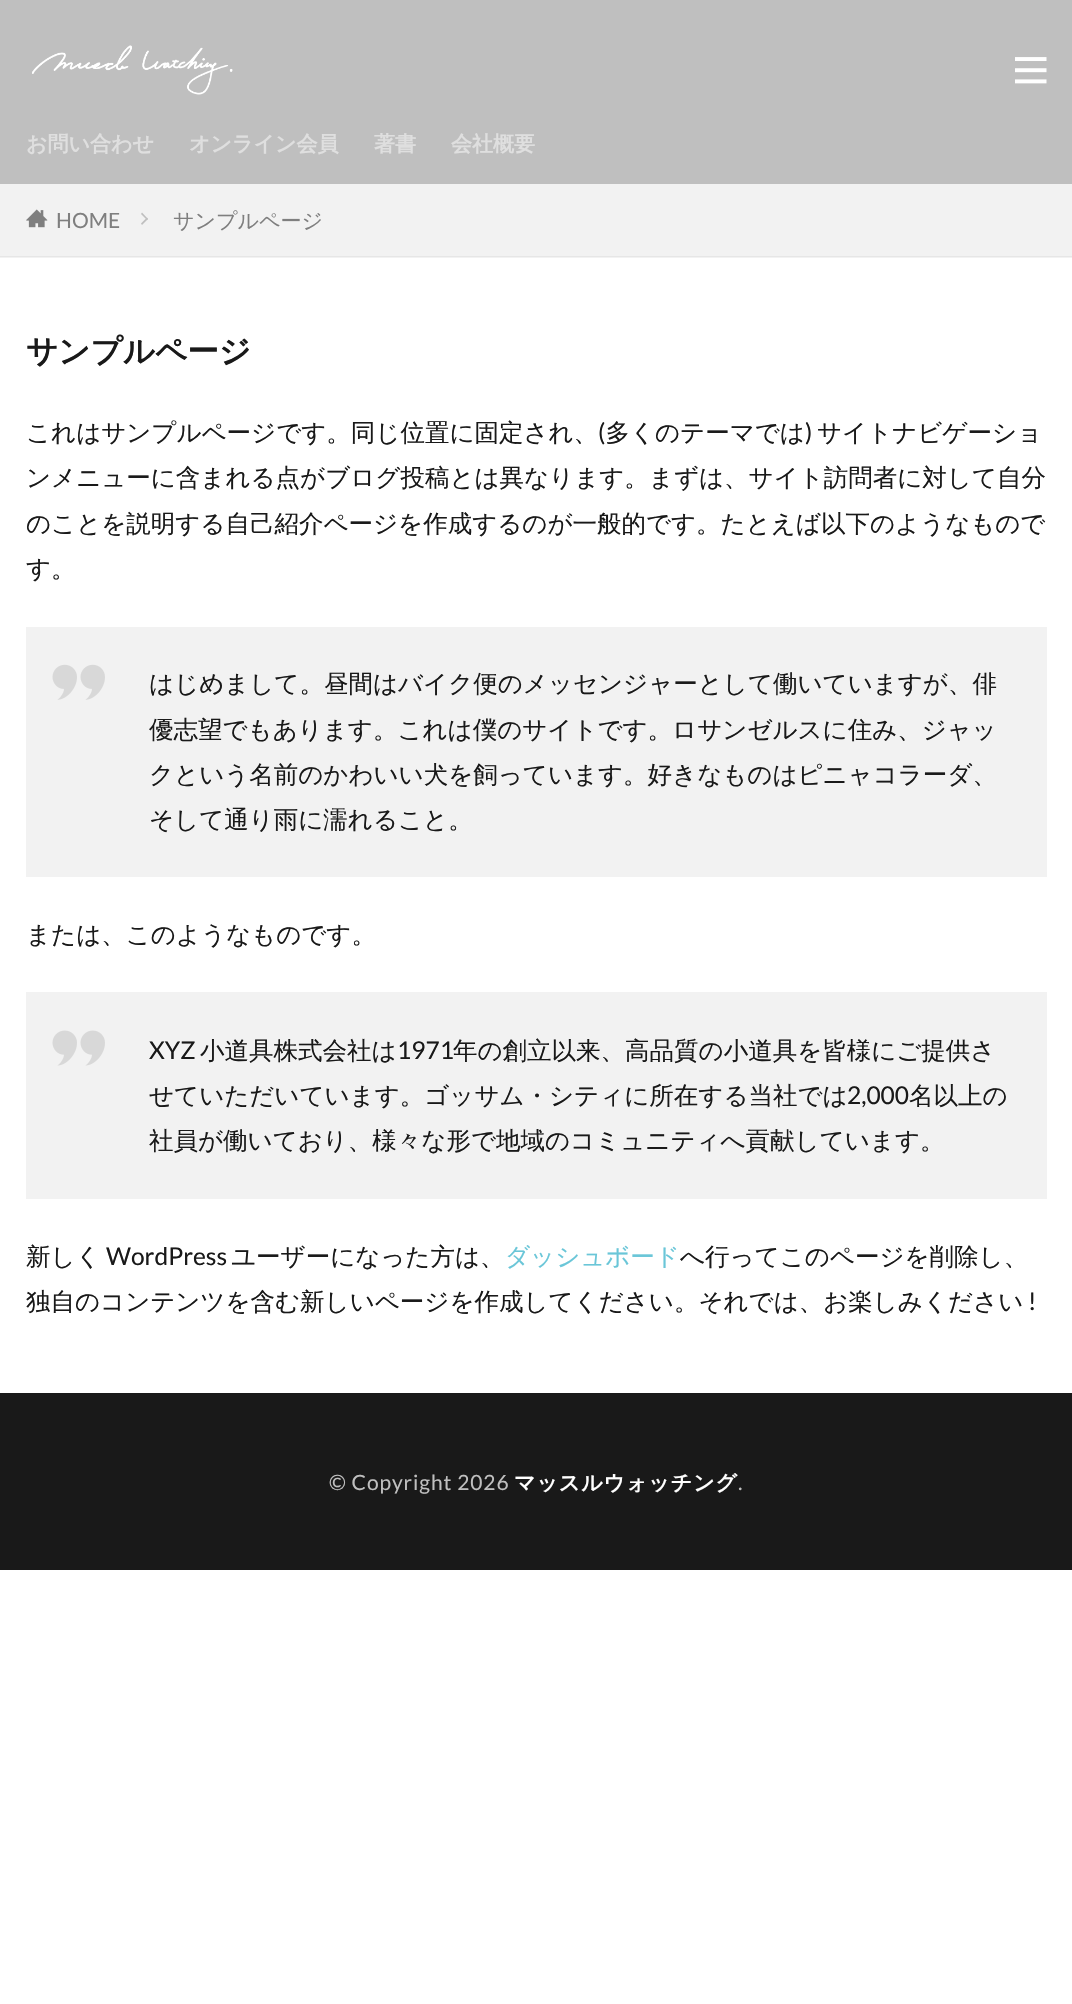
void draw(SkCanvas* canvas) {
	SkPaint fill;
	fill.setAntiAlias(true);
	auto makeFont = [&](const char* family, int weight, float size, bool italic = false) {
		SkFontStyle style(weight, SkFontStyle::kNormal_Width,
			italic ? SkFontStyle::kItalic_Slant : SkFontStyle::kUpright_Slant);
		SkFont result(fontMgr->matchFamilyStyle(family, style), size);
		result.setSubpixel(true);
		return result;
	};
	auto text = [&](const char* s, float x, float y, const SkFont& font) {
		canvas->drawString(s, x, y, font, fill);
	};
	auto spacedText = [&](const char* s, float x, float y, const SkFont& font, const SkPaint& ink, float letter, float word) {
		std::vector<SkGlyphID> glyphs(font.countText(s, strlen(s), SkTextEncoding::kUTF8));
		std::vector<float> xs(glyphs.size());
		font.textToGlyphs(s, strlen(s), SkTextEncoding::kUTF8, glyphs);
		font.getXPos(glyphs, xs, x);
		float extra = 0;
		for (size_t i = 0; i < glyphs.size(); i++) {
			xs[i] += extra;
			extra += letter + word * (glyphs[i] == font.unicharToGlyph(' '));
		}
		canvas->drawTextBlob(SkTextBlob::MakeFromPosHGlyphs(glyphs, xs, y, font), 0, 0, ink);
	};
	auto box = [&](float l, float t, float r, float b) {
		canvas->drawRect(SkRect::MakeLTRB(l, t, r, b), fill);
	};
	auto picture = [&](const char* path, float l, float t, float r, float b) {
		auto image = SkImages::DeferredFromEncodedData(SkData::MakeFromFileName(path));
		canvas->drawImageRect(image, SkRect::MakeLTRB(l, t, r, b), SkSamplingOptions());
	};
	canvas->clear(0xFFFFFFFF);
	fill.setColor(0xFFF2F2F2);
	box(0, 257, 1072, 258);
	fill.setColor(0xFFBFBFBF);
	box(0, 0, 1072, 184);
	picture("image0.png", 32, 45, 233, 95);
	picture("image1.png", 1015, 57, 1047, 84);
	fill.setColor(0xFFF2F2F2);
	box(0, 184, 1072, 256);
	fill.setColor(0xFFE6E6E6);
	box(0, 256, 1072, 257);
	picture("image2.png", 26, 209, 48, 228);
	fill.setColor(0xFFBFBFBF);
	canvas->drawPath(SkPathBuilder().moveTo(142, 212.5f).lineTo(148, 219).lineTo(147, 220).lineTo(141, 214).close().detach(), fill);
	canvas->drawPath(SkPathBuilder().moveTo(147, 217.5f).lineTo(148, 219).lineTo(142, 225).lineTo(141, 223.5f).close().detach(), fill);
	fill.setColor(0xFFF2F2F2);
	box(26, 627, 1047, 877);
	picture("image3.png", 52, 664, 105, 700);
	box(26, 992, 1047, 1199);
	picture("image4.png", 52, 1030, 105, 1066);
	fill.setColor(0xFF191919);
	box(0, 1393, 1072, 1570);
	auto font1 = makeFont("WenQuanYi Zen Hei", 700, 21);
	fill.setColor(0xFFDFDFDF);
	text("お問い合わせ", 26, 151, font1);
	text("オンライン会員", 189, 151, font1);
	text("著書", 374, 151, font1);
	text("会社概要", 451, 151, font1);
	auto font2 = makeFont("Lato", 400, 21);
	fill.setColor(0xFF7F7F7F);
	text("HOME", 56, 228, font2);
	auto font3 = makeFont("WenQuanYi Zen Hei", 500, 21);
	text("サンプルページ", 173, 228, font3);
	auto font4 = makeFont("WenQuanYi Zen Hei", 700, 31.5f);
	fill.setColor(0xFF191919);
	text("サンプルページ", 26, 362, font4);
	auto font5 = makeFont("WenQuanYi Zen Hei", 500, 24.5f);
	text("これはサンプルページです。同じ位置に固定され、 多くのテーマでは", 26, 441, font5);
	text("サイトナビゲーショ", 817, 441, font5);
	auto font6 = makeFont("Lato", 400, 24.5f);
	text("(", 598, 441, font6);
	text(")", 805, 441, font6);
	text("ンメニューに含まれる点がブログ投稿とは異なります。まずは、サイト訪問者に対して自分", 26, 486, font5);
	text("のことを説明する自己紹介ページを作成するのが一般的です。たとえば以下のようなもので", 26, 532, font5);
	text("す。", 26, 577, font5);
	text("はじめまして。昼間はバイク便のメッセンジャーとして働いていますが、俳", 149, 692, font5);
	text("優志望でもあります。これは僕のサイトです。ロサンゼルスに住み、ジャッ", 149, 738, font5);
	text("クという名前のかわいい犬を飼っています。好きなものはピニャコラーダ、", 149, 783, font5);
	text("そして通り雨に濡れること。", 149, 828, font5);
	text("または、このようなものです。", 26, 943, font5);
	text("XYZ", 149, 1059, font6);
	text("小道具株式会社は", 200, 1059, font5);
	text("1971", 397, 1059, font6);
	text("年の創立以来、高品質の小道具を皆様にご提供さ", 453, 1059, font5);
	text("せていただいています。ゴッサム・シティに所在する当社では", 149, 1104, font5);
	text("2,000", 847, 1104, font6);
	text("名以上の", 909, 1104, font5);
	text("社員が働いており、様々な形で地域のコミュニティへ貢献しています。", 149, 1149, font5);
	text("新しく", 26, 1265, font5);
	text("WordPress", 106, 1265, font6);
	text("ユーザーになった方は、", 231, 1265, font5);
	fill.setColor(0xFF6AC6D8);
	text("ダッシュボード", 505, 1265, font5);
	fill.setColor(0xFF191919);
	text("へ行ってこのページを削除し、", 680, 1265, font5);
	text("独自のコンテンツを含む新しいページを作成してください。それでは、お楽しみください", 26, 1310, font5);
	text("!", 1028, 1310, font6);
	fill.setColor(0xFFBFBFBF);
	spacedText("© Copyright 2026", 329, 1490, font2, fill, 0.9f, 0);
	fill.setColor(0xFFFFFFFF);
	spacedText("マッスルウォッチング", 514, 1490, font1, fill, 0.9f, 0);
	fill.setColor(0xFFBFBFBF);
	spacedText(".", 738, 1490, font2, fill, 0.9f, 0);
}
